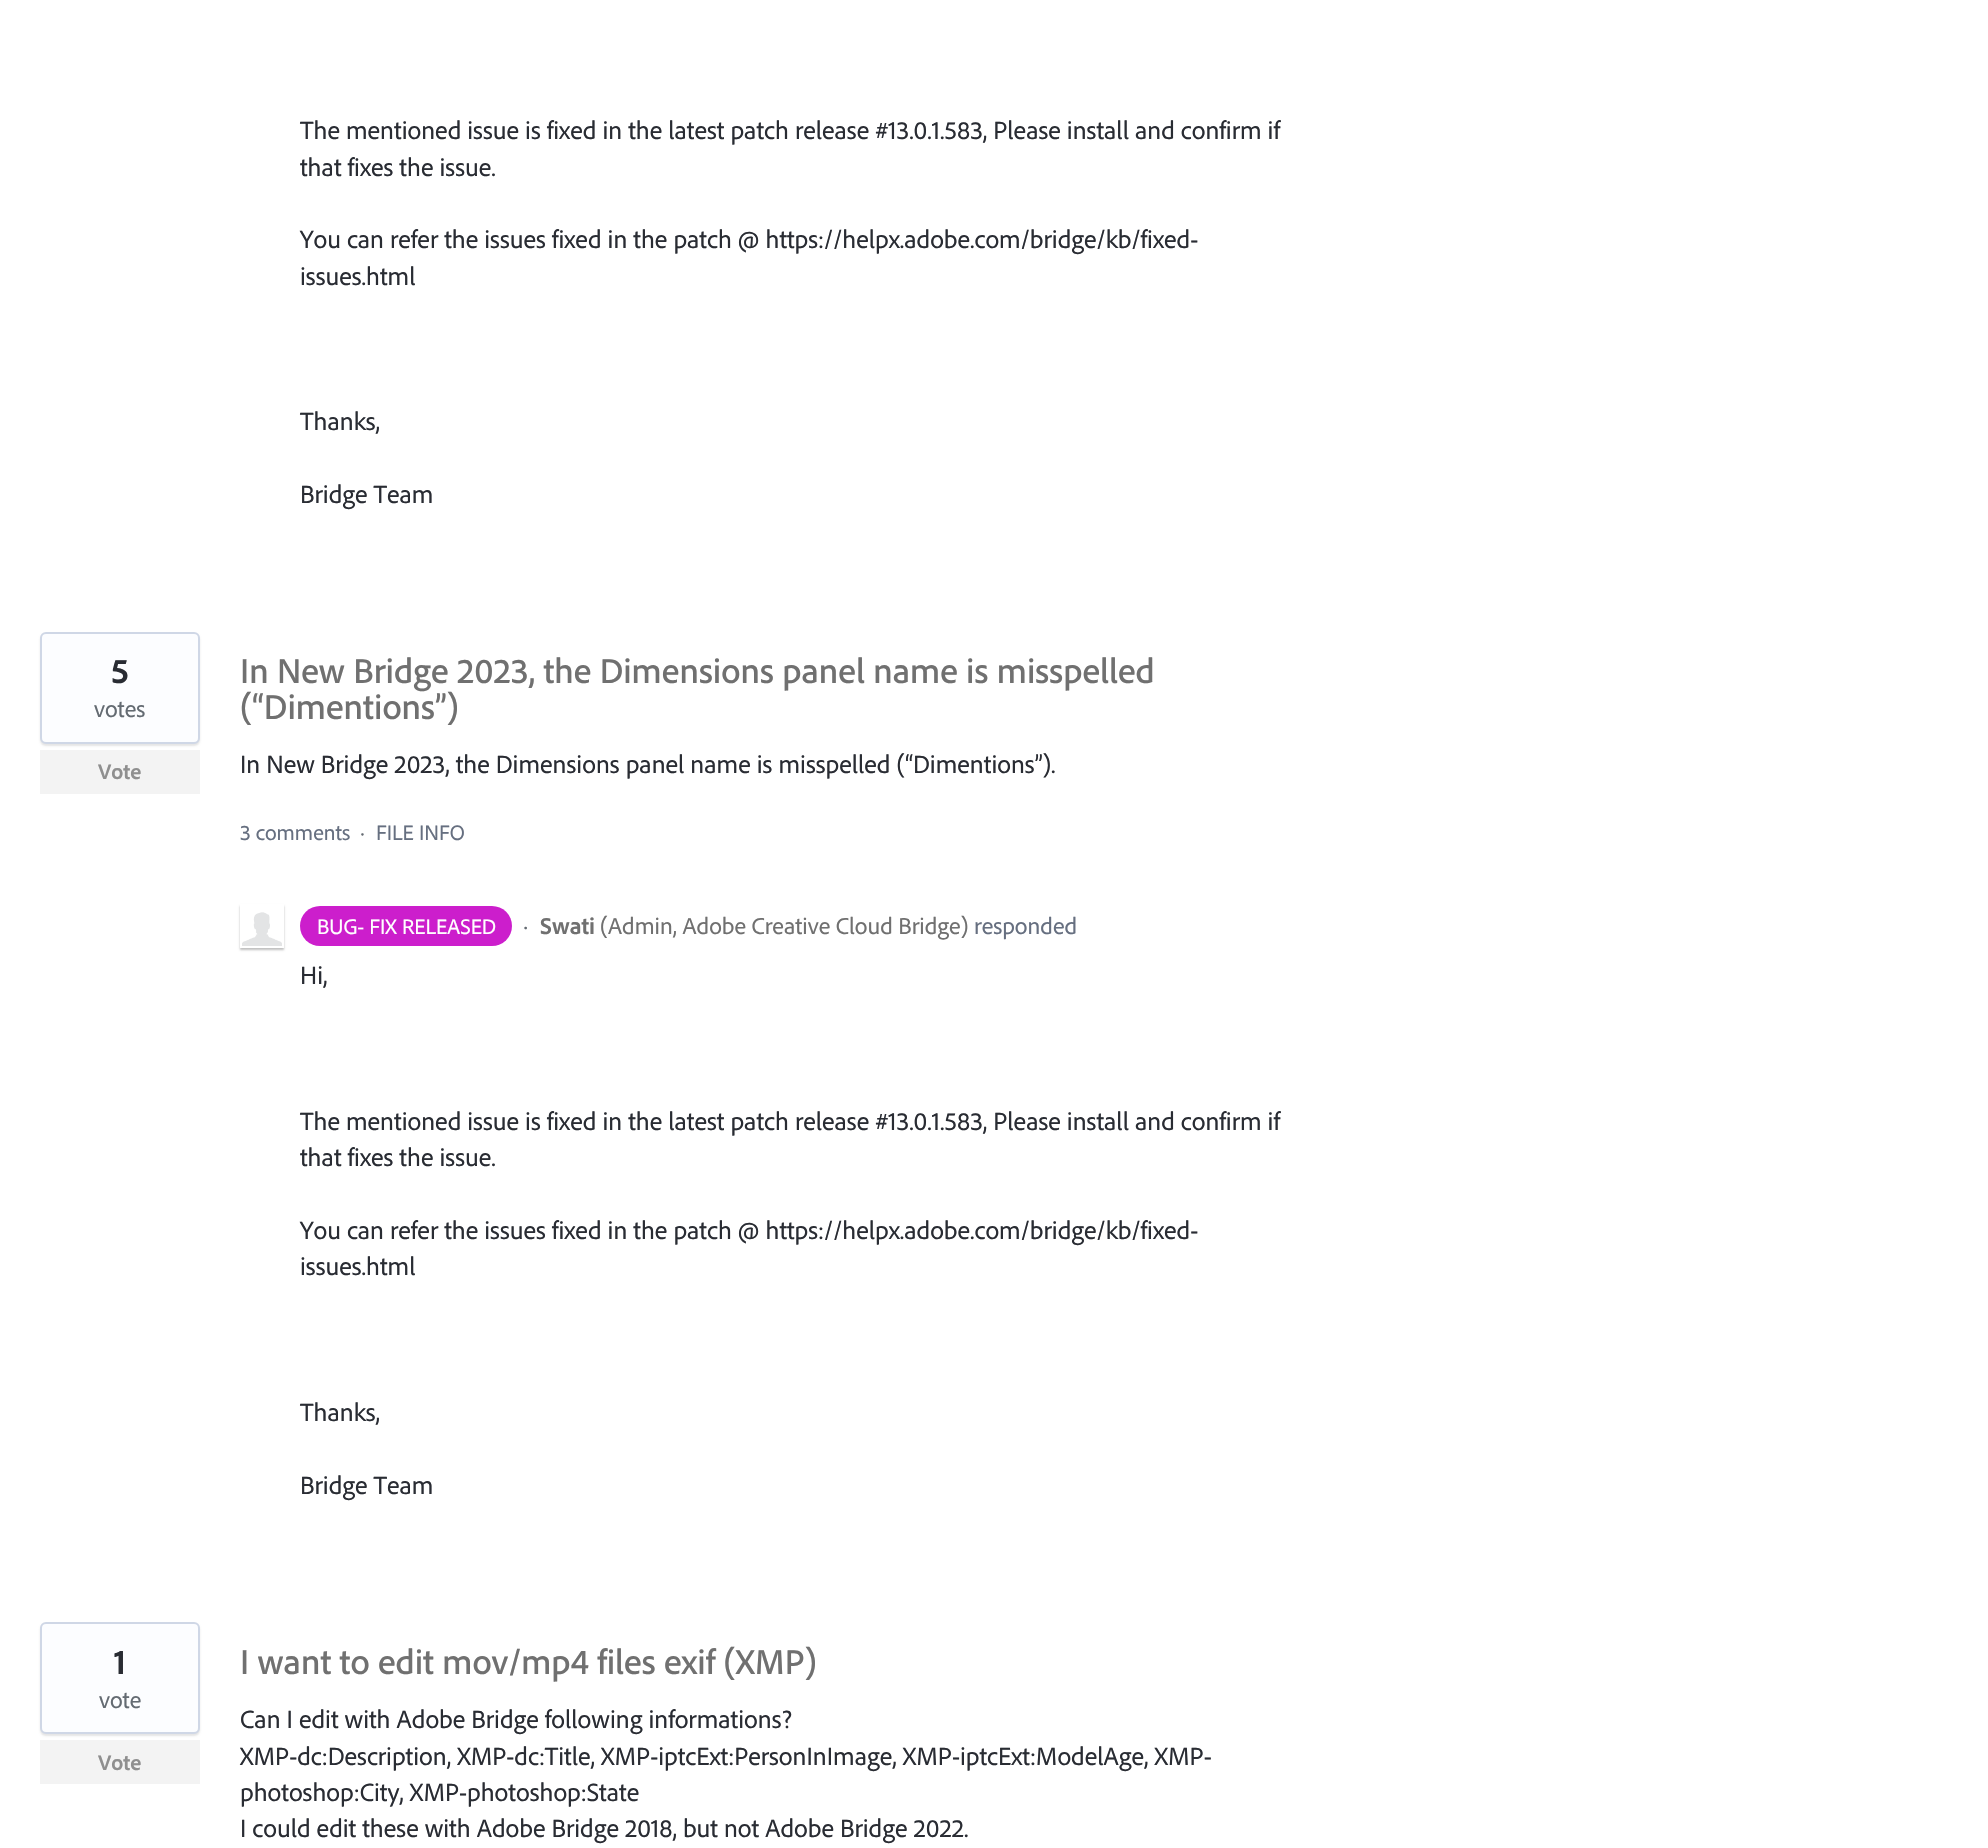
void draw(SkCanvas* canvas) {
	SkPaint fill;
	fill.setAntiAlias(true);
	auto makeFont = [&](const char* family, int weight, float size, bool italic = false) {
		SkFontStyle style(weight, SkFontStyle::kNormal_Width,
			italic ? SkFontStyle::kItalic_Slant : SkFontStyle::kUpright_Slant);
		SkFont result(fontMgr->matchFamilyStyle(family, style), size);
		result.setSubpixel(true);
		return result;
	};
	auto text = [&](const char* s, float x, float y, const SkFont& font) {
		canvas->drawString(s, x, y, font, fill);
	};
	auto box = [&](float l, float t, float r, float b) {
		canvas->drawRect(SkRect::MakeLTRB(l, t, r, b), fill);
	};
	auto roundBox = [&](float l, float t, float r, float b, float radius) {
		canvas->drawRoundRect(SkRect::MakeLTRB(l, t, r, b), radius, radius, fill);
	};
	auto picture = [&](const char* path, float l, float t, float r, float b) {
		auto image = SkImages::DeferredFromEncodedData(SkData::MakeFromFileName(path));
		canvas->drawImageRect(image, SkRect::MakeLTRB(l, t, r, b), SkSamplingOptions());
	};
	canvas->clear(0xFFFFFFFF);
	fill.setColor(0x1A000000);
	fill.setMaskFilter(SkMaskFilter::MakeBlur(kNormal_SkBlurStyle, 1));
	canvas->drawRoundRect(SkRect::MakeLTRB(40, 634, 200, 746), 6, 6, fill);
	fill.setMaskFilter(nullptr);
	fill.setColor(0xFFFCFDFF);
	canvas->drawRoundRect(SkRect::MakeLTRB(41, 633, 199, 743), 5, 5, fill);
	fill.setStyle(SkPaint::kStroke_Style);
	fill.setStrokeWidth(2);
	fill.setColor(0xFFCFD7E6);
	canvas->drawRoundRect(SkRect::MakeLTRB(41, 633, 199, 743), 5, 5, fill);
	fill.setStyle(SkPaint::kFill_Style);
	fill.setColor(0xFFF3F3F3);
	box(40, 750, 200, 794);
	fill.setColor(0xFFCC1ECC);
	roundBox(300, 906, 512, 946, 20);
	canvas->save();
	canvas->clipPath(SkPathBuilder(SkPathFillType::kEvenOdd).moveTo(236, 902).lineTo(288, 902).lineTo(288, 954).lineTo(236, 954).close().moveTo(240, 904).lineTo(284, 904).lineTo(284, 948).lineTo(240, 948).close().detach(), true);
	fill.setColor(0x40000000);
	fill.setMaskFilter(SkMaskFilter::MakeBlur(kNormal_SkBlurStyle, 1));
	canvas->drawRect(SkRect::MakeLTRB(240, 906, 284, 950), fill);
	fill.setMaskFilter(nullptr);
	canvas->restore();
	picture("image0.png", 242, 912, 282, 946);
	fill.setColor(0x1A000000);
	fill.setMaskFilter(SkMaskFilter::MakeBlur(kNormal_SkBlurStyle, 1));
	canvas->drawRoundRect(SkRect::MakeLTRB(40, 1624, 200, 1736), 6, 6, fill);
	fill.setMaskFilter(nullptr);
	fill.setColor(0xFFFCFDFF);
	canvas->drawRoundRect(SkRect::MakeLTRB(41, 1623, 199, 1733), 5, 5, fill);
	fill.setStyle(SkPaint::kStroke_Style);
	fill.setColor(0xFFCFD7E6);
	canvas->drawRoundRect(SkRect::MakeLTRB(41, 1623, 199, 1733), 5, 5, fill);
	fill.setStyle(SkPaint::kFill_Style);
	fill.setColor(0xFFF3F3F3);
	box(40, 1740, 200, 1784);
	auto font1 = makeFont("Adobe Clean", 400, 26);
	fill.setColor(0xFF292C33);
	text("The mentioned issue is fixed in the latest patch release #13.0.1.583, Please install and confirm if", 300, 139, font1);
	text("that fixes the issue.", 300, 176, font1);
	text("You can refer the issues fixed in the patch @ https://helpx.adobe.com/bridge/kb/fixed-", 300, 248, font1);
	text("issues.html", 300, 285, font1);
	text("Thanks,", 300, 430, font1);
	text("Bridge Team", 300, 503, font1);
	auto font2 = makeFont("Adobe Clean", 700, 36);
	text("5", 111, 683, font2);
	auto font3 = makeFont("Adobe Clean", 400, 24);
	fill.setColor(0xFF646B72);
	text("votes", 94, 717, font3);
	auto font4 = makeFont("Adobe Clean", 700, 22);
	fill.setColor(0xFF8F8F8F);
	text("Vote", 98, 779, font4);
	auto font5 = makeFont("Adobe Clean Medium", 500, 36);
	fill.setColor(0xFF707070);
	text("In New Bridge 2023, the Dimensions panel name is misspelled", 240, 683, font5);
	text("(“Dimentions”)", 240, 719, font5);
	fill.setColor(0xFF292C33);
	text("In New Bridge 2023, the Dimensions panel name is misspelled (“Dimentions”).", 240, 773, font1);
	auto font6 = makeFont("Adobe Clean", 400, 22);
	fill.setColor(0xFF666F80);
	text("3 comments", 240, 840, font6);
	fill.setColor(0xFF646B72);
	text("·", 360, 840, font6);
	fill.setColor(0xFF666F80);
	text("FILE INFO", 376, 840, font6);
	fill.setColor(0xFFFFFFFF);
	text("BUG- FIX RELEASED", 317, 934, font6);
	fill.setColor(0xFF646B72);
	text("·", 523, 934, font3);
	auto font7 = makeFont("Adobe Clean", 700, 24);
	fill.setColor(0xFF707070);
	text("Swati", 540, 934, font7);
	text("(Admin, Adobe Creative Cloud Bridge)", 600, 934, font3);
	fill.setColor(0xFF666F80);
	text("responded", 974, 934, font3);
	fill.setColor(0xFF292C33);
	text("Hi,", 300, 984, font1);
	text("The mentioned issue is fixed in the latest patch release #13.0.1.583, Please install and confirm if", 300, 1130, font1);
	text("that fixes the issue.", 300, 1166, font1);
	text("You can refer the issues fixed in the patch @ https://helpx.adobe.com/bridge/kb/fixed-", 300, 1239, font1);
	text("issues.html", 300, 1275, font1);
	text("Thanks,", 300, 1421, font1);
	text("Bridge Team", 300, 1494, font1);
	text("1", 114, 1674, font2);
	fill.setColor(0xFF646B72);
	text("vote", 99, 1708, font3);
	fill.setColor(0xFF8F8F8F);
	text("Vote", 98, 1770, font4);
	fill.setColor(0xFF707070);
	text("I want to edit mov/mp4 files exif (XMP)", 240, 1674, font5);
	fill.setColor(0xFF292C33);
	text("Can I edit with Adobe Bridge following informations?", 240, 1728, font1);
	text("XMP-dc:Description, XMP-dc:Title, XMP-iptcExt:PersonInImage, XMP-iptcExt:ModelAge, XMP-", 240, 1765, font1);
	text("photoshop:City, XMP-photoshop:State", 240, 1801, font1);
	text("I could edit these with Adobe Bridge 2018, but not Adobe Bridge 2022.", 240, 1837, font1);
}
